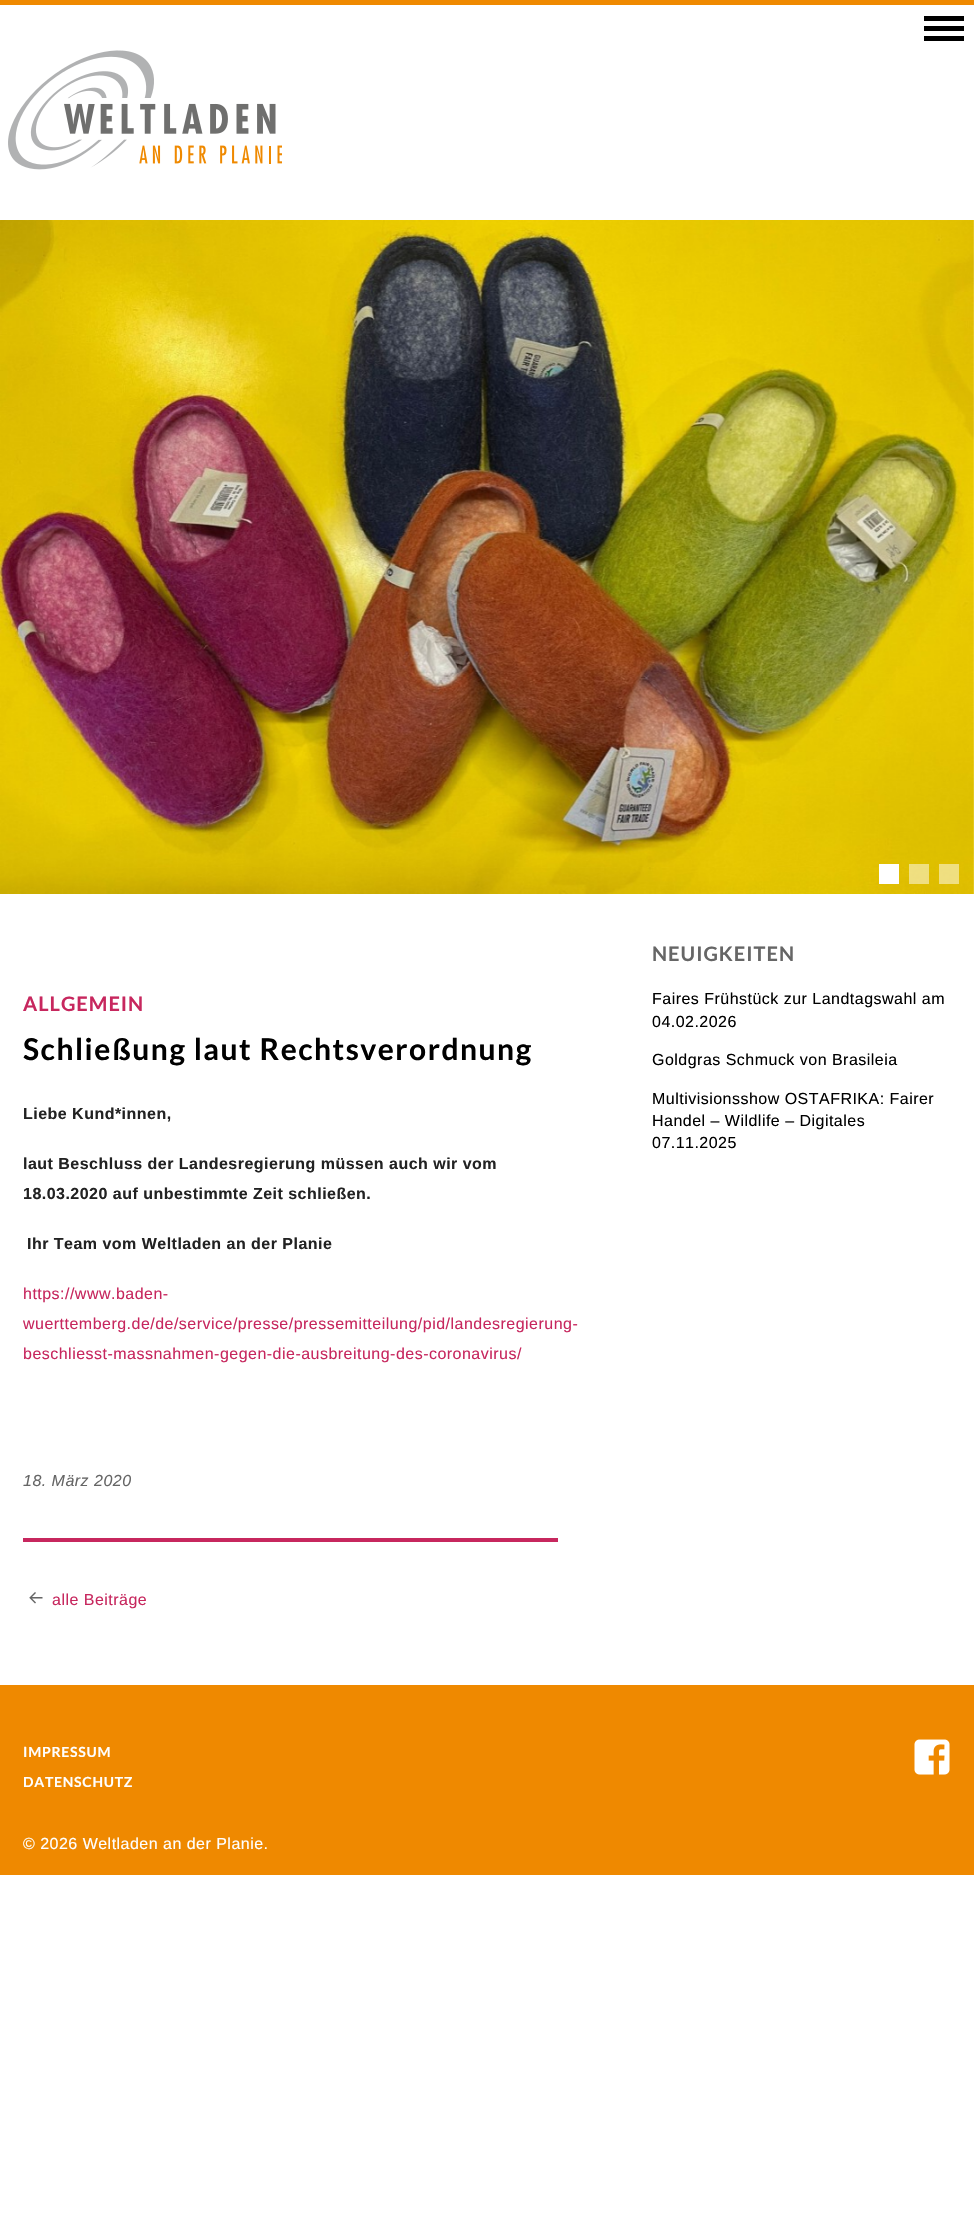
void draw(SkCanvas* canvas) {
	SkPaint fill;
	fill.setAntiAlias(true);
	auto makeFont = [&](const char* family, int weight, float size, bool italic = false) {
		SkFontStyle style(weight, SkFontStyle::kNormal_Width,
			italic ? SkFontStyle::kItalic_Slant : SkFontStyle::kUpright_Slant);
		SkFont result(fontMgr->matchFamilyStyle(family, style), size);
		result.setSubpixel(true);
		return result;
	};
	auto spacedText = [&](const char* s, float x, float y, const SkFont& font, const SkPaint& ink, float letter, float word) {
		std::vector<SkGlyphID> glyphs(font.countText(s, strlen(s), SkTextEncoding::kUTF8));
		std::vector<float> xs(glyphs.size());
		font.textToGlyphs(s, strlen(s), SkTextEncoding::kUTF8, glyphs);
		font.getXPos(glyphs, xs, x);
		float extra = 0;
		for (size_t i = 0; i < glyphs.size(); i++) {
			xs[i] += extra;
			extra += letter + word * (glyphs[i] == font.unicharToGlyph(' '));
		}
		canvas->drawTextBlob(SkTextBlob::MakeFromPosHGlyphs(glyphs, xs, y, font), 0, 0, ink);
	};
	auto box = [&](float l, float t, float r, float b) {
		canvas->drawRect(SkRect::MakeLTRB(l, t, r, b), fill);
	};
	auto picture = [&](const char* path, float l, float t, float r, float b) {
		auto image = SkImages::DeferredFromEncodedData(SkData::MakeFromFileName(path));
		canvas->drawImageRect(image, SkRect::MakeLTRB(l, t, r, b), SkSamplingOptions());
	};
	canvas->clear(0xFFFFFFFF);
	fill.setColor(0xFFEF8900);
	box(0, 0, 974, 5);
	fill.setColor(0xFF000000);
	box(924, 36, 964, 41);
	box(924, 26, 964, 31);
	box(924, 16, 964, 21);
	picture("image0.png", 8, 50, 282, 170);
	picture("image1.png", 0, 220, 974, 894);
	fill.setColor(0xFFFFFFFF);
	box(879, 864, 899, 884);
	fill.setColor(0x80FFFFFF);
	box(909, 864, 929, 884);
	box(939, 864, 959, 884);
	fill.setColor(0xFFC7275E);
	box(23, 1538, 558, 1542);
	picture("image2.png", 29, 1592, 43, 1604);
	fill.setColor(0xFFEF8900);
	box(0, 1685, 974, 1875);
	picture("image3.png", 914, 1739, 950, 1775);
	auto font1 = makeFont("Lato", 700, 20);
	fill.setColor(0xFFC7275E);
	spacedText("ALLGEMEIN", 23, 1011, font1, fill, 1, 0);
	auto font2 = makeFont("Lato", 700, 30);
	fill.setColor(0xFF000000);
	spacedText("Schließung laut Rechtsverordnung", 23, 1060, font2, fill, 1.5f, 0);
	auto font3 = makeFont("Liberation Sans", 700, 16);
	fill.setColor(0xFF222222);
	spacedText("Liebe Kund*innen,", 23, 1119, font3, fill, 0.48f, 0);
	spacedText("laut Beschluss der Landesregierung müssen auch wir vom", 23, 1169, font3, fill, 0.48f, 0);
	spacedText("18.03.2020 auf unbestimmte Zeit schließen.", 23, 1199, font3, fill, 0.48f, 0);
	spacedText("Ihr Team vom Weltladen an der Planie", 27, 1249, font3, fill, 0.48f, 0);
	auto font4 = makeFont("Liberation Sans", 400, 16);
	fill.setColor(0xFFC7275E);
	spacedText("https://www.baden-", 23, 1299, font4, fill, 0.48f, 0);
	spacedText("wuerttemberg.de/de/service/presse/pressemitteilung/pid/landesregierung-", 23, 1329, font4, fill, 0.48f, 0);
	spacedText("beschliesst-massnahmen-gegen-die-ausbreitung-des-coronavirus/", 23, 1359, font4, fill, 0.48f, 0);
	auto font5 = makeFont("Liberation Sans", 400, 16, true);
	fill.setColor(0xFF666666);
	spacedText("18. März 2020", 23, 1486, font5, fill, 0.48f, 0);
	fill.setColor(0xFFC7275E);
	spacedText("alle Beiträge", 52, 1605, font4, fill, 0.48f, 0);
	fill.setColor(0xFF666666);
	spacedText("NEUIGKEITEN", 652, 961, font1, fill, 1, 0);
	fill.setColor(0xFF000000);
	spacedText("Faires Frühstück zur Landtagswahl am", 652, 1004, font4, fill, 0.48f, 0);
	spacedText("04.02.2026", 652, 1027, font4, fill, 0.48f, 0);
	spacedText("Goldgras Schmuck von Brasileia", 652, 1065, font4, fill, 0.48f, 0);
	spacedText("Multivisionsshow OSTAFRIKA: Fairer", 652, 1104, font4, fill, 0.48f, 0);
	spacedText("Handel – Wildlife – Digitales", 652, 1126, font4, fill, 0.48f, 0);
	spacedText("07.11.2025", 652, 1148, font4, fill, 0.48f, 0);
	auto font6 = makeFont("Lato", 700, 14);
	fill.setColor(0xFFFFFFFF);
	spacedText("IMPRESSUM", 23, 1757, font6, fill, 0.75f, 0);
	spacedText("DATENSCHUTZ", 23, 1787, font6, fill, 0.75f, 0);
	spacedText("© 2026 Weltladen an der Planie.", 23, 1849, font4, fill, 0.48f, 0);
}
